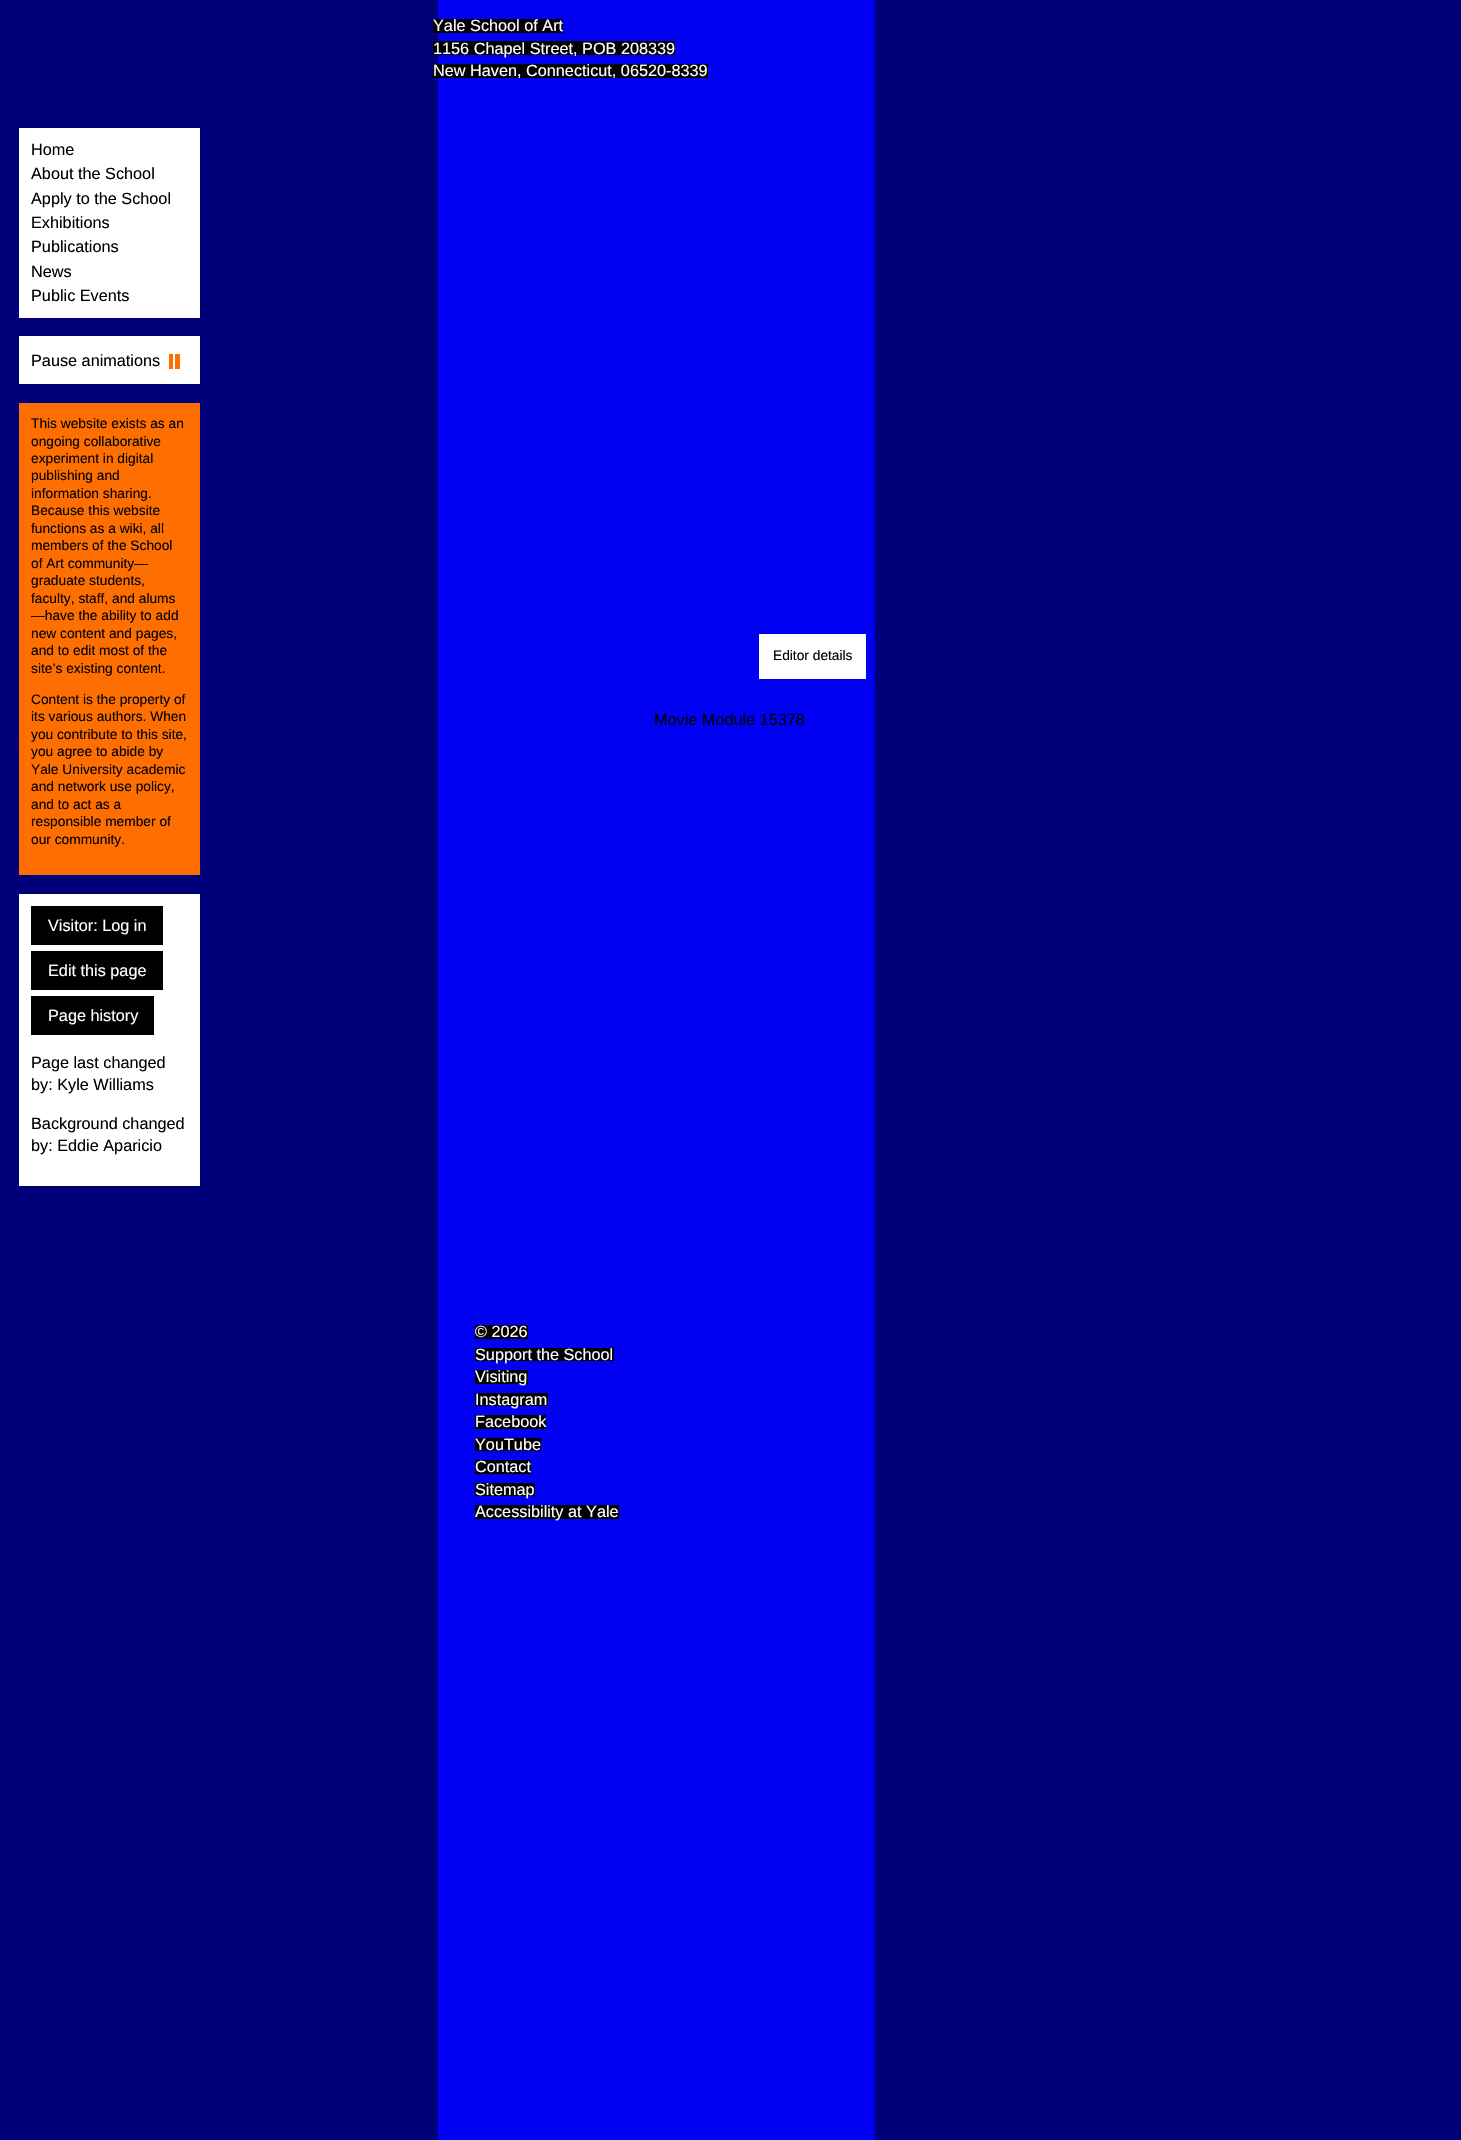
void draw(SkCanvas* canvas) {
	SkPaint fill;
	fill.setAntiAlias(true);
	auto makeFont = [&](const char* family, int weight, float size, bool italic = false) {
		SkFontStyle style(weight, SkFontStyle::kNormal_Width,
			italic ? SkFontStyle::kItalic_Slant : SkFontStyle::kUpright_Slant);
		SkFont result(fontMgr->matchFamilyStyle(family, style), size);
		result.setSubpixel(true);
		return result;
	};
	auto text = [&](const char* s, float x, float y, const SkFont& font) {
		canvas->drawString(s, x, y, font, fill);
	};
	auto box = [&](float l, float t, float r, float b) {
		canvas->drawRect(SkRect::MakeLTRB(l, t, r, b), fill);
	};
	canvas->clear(0xFF00007A);
	fill.setColor(0xFF0000F3);
	box(438, 0, 875, 2140);
	fill.setColor(0xFF000000);
	box(433, 19, 563, 33);
	box(433, 41, 675, 55);
	box(433, 64, 708, 78);
	fill.setColor(0xFFFFFFFF);
	box(19, 128, 200, 318);
	box(19, 336, 200, 384);
	fill.setColor(0xFFFF6E01);
	box(169, 354, 173, 369);
	box(175, 354, 180, 369);
	box(19, 403, 200, 875);
	fill.setColor(0xFFFFFFFF);
	box(19, 894, 200, 1186);
	fill.setColor(0xFF000000);
	box(31, 906, 163, 945);
	box(31, 951, 163, 990);
	box(31, 996, 154, 1035);
	fill.setColor(0xFFFFFFFF);
	box(759, 634, 866, 679);
	fill.setColor(0xFF000000);
	box(475, 1325, 528, 1339);
	box(475, 1348, 614, 1361);
	box(475, 1370, 528, 1384);
	box(475, 1393, 548, 1406);
	box(475, 1415, 546, 1429);
	box(475, 1438, 541, 1451);
	box(475, 1460, 531, 1474);
	box(475, 1483, 535, 1496);
	box(475, 1505, 619, 1519);
	auto font1 = makeFont("Liberation Sans", 400, 16.25f);
	fill.setColor(0xFFFFFFFF);
	text("Yale School of Art", 433, 31, font1);
	text("1156 Chapel Street, POB 208339", 433, 54, font1);
	text("New Haven, Connecticut, 06520-8339", 433, 76, font1);
	fill.setColor(0xFF000000);
	text("Home", 31, 155, font1);
	text("About the School", 31, 179, font1);
	text("Apply to the School", 31, 204, font1);
	text("Exhibitions", 31, 228, font1);
	text("Publications", 31, 252, font1);
	text("News", 31, 277, font1);
	text("Public Events", 31, 301, font1);
	text("Pause animations", 31, 366, font1);
	auto font2 = makeFont("Liberation Sans", 400, 13.75f);
	text("This website exists as an", 31, 428, font2);
	text("ongoing collaborative", 31, 446, font2);
	text("experiment in digital", 31, 463, font2);
	text("publishing and", 31, 480, font2);
	text("information sharing.", 31, 498, font2);
	text("Because this website", 31, 515, font2);
	text("functions as a wiki, all", 31, 533, font2);
	text("members of the School", 31, 550, font2);
	text("of Art community—", 31, 568, font2);
	text("graduate students,", 31, 585, font2);
	text("faculty, staff, and alums", 31, 603, font2);
	text("—have the ability to add", 31, 620, font2);
	text("new content and pages,", 31, 638, font2);
	text("and to edit most of the", 31, 655, font2);
	text("site’s existing content.", 31, 673, font2);
	text("Content is the property of", 31, 704, font2);
	text("its various authors. When", 31, 721, font2);
	text("you contribute to this site,", 31, 739, font2);
	text("you agree to abide by", 31, 756, font2);
	text("Yale University academic", 31, 774, font2);
	text("and network use policy,", 31, 791, font2);
	text("and to act as a", 31, 809, font2);
	text("responsible member of", 31, 826, font2);
	text("our community.", 31, 844, font2);
	fill.setColor(0xFFFFFFFF);
	text("Visitor: Log in", 48, 931, font1);
	text("Edit this page", 48, 976, font1);
	text("Page history", 48, 1021, font1);
	fill.setColor(0xFF000000);
	text("Page last changed", 31, 1068, font1);
	text("by: Kyle Williams", 31, 1090, font1);
	text("Background changed", 31, 1129, font1);
	text("by: Eddie Aparicio", 31, 1151, font1);
	text("Editor details", 773, 660, font2);
	text("Movie Module 15378", 654, 725, font1);
	fill.setColor(0xFFFFFFFF);
	text("© 2026", 475, 1337, font1);
	text("Support the School", 475, 1360, font1);
	text("Visiting", 475, 1382, font1);
	text("Instagram", 475, 1405, font1);
	text("Facebook", 475, 1427, font1);
	text("YouTube", 475, 1450, font1);
	text("Contact", 475, 1472, font1);
	text("Sitemap", 475, 1495, font1);
	text("Accessibility at Yale", 475, 1517, font1);
}
